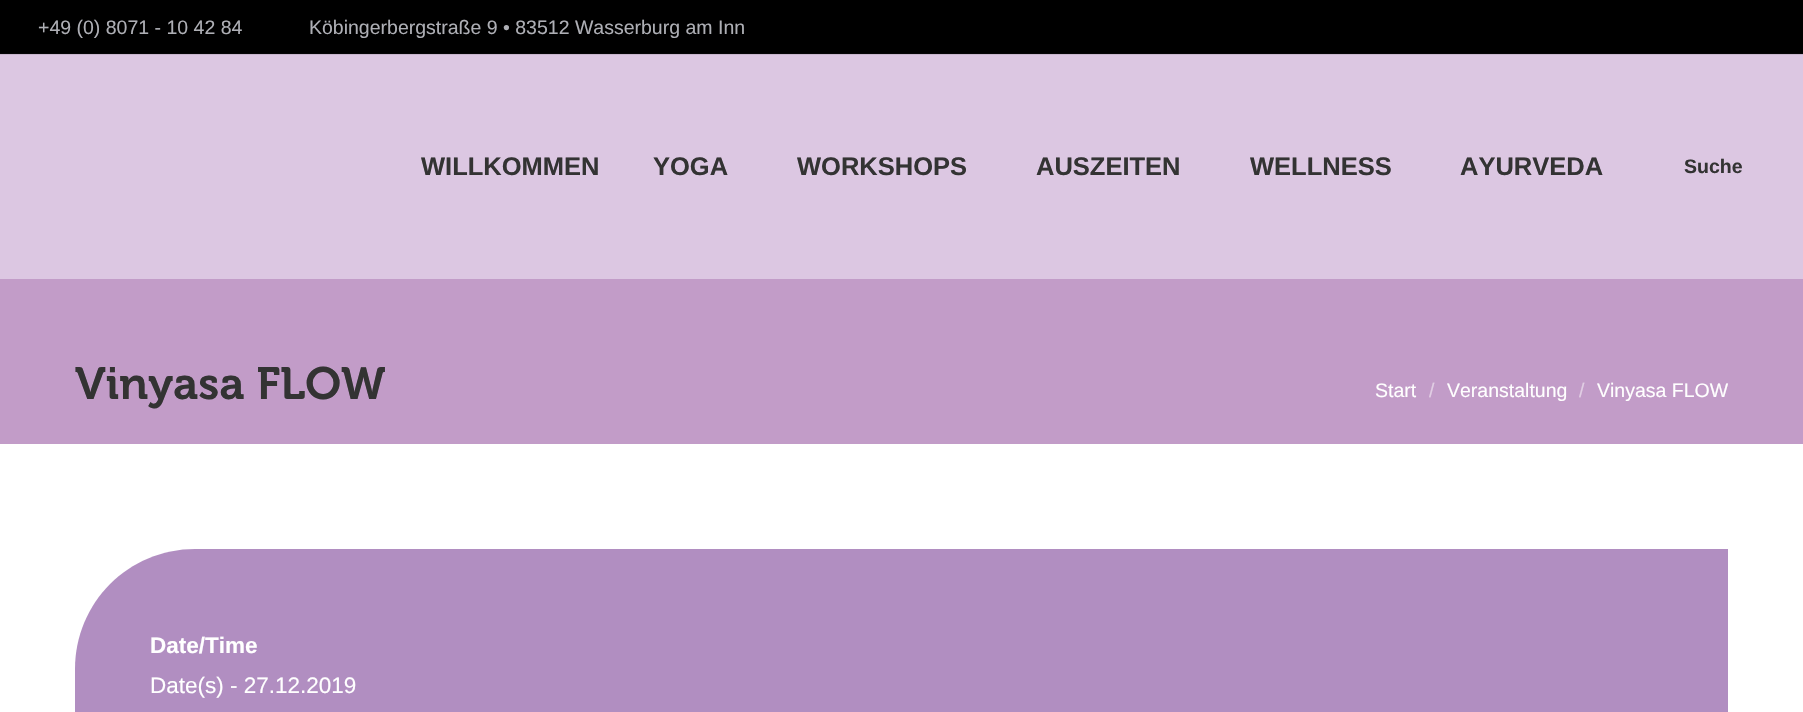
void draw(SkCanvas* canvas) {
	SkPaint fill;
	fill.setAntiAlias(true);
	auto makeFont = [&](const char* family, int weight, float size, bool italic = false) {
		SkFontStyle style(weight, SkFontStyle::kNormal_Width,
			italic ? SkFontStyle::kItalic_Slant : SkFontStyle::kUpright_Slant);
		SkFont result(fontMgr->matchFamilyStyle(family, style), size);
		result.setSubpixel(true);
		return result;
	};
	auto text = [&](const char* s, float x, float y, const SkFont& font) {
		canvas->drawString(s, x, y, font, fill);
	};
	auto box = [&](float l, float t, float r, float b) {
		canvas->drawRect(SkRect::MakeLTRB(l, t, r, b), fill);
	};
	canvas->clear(0xFFFFFFFF);
	fill.setColor(0xFFDCC7E2);
	box(0, 55, 1803, 279);
	fill.setColor(0xFFC8B5CD);
	box(0, 54, 1803, 55);
	fill.setColor(0xFF000000);
	box(0, 0, 1803, 53);
	fill.setColor(0xFF060606);
	box(0, 53, 1803, 54);
	fill.setColor(0xFFC29CC8);
	box(0, 279, 1803, 444);
	fill.setColor(0xFFB18EC1);
	canvas->drawPath(SkPathBuilder().moveTo(195, 549).lineTo(1728, 549).lineTo(1728, 712).cubicTo(1728, 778.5f, 1674.5f, 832, 1608, 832).lineTo(75, 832).lineTo(75, 669).cubicTo(75, 602.5f, 128.5f, 549, 195, 549).close().detach(), fill);
	auto font1 = makeFont("Liberation Sans", 400, 19.5f);
	fill.setColor(0xFFAEAFB5);
	text("+49 (0) 8071 - 10 42 84", 38, 34, font1);
	text("Köbingerbergstraße 9 • 83512 Wasserburg am Inn", 309, 34, font1);
	auto font2 = makeFont("Liberation Sans", 700, 25.5f);
	fill.setColor(0xFF333333);
	text("WILLKOMMEN", 421, 175, font2);
	text("YOGA", 653, 175, font2);
	text("WORKSHOPS", 797, 175, font2);
	text("AUSZEITEN", 1036, 175, font2);
	text("WELLNESS", 1250, 175, font2);
	text("AYURVEDA", 1460, 175, font2);
	auto font3 = makeFont("Liberation Sans", 700, 19.5f);
	text("Suche", 1684, 173, font3);
	auto font4 = makeFont("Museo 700", 600, 45);
	text("Vinyasa FLOW", 75, 399, font4);
	fill.setColor(0xFFFFFFFF);
	text("Start", 1375, 397, font1);
	fill.setColor(0xFFE1CEE4);
	text("/", 1429, 397, font1);
	fill.setColor(0xFFFFFFFF);
	text("Veranstaltung", 1447, 397, font1);
	fill.setColor(0xFFE1CEE4);
	text("/", 1579, 397, font1);
	fill.setColor(0xFFFFFFFF);
	text("Vinyasa FLOW", 1597, 397, font1);
	auto font5 = makeFont("Liberation Sans", 700, 22.5f);
	text("Date/Time", 150, 653, font5);
	auto font6 = makeFont("Liberation Sans", 400, 22.5f);
	text("Date(s) - 27.12.2019", 150, 693, font6);
}
